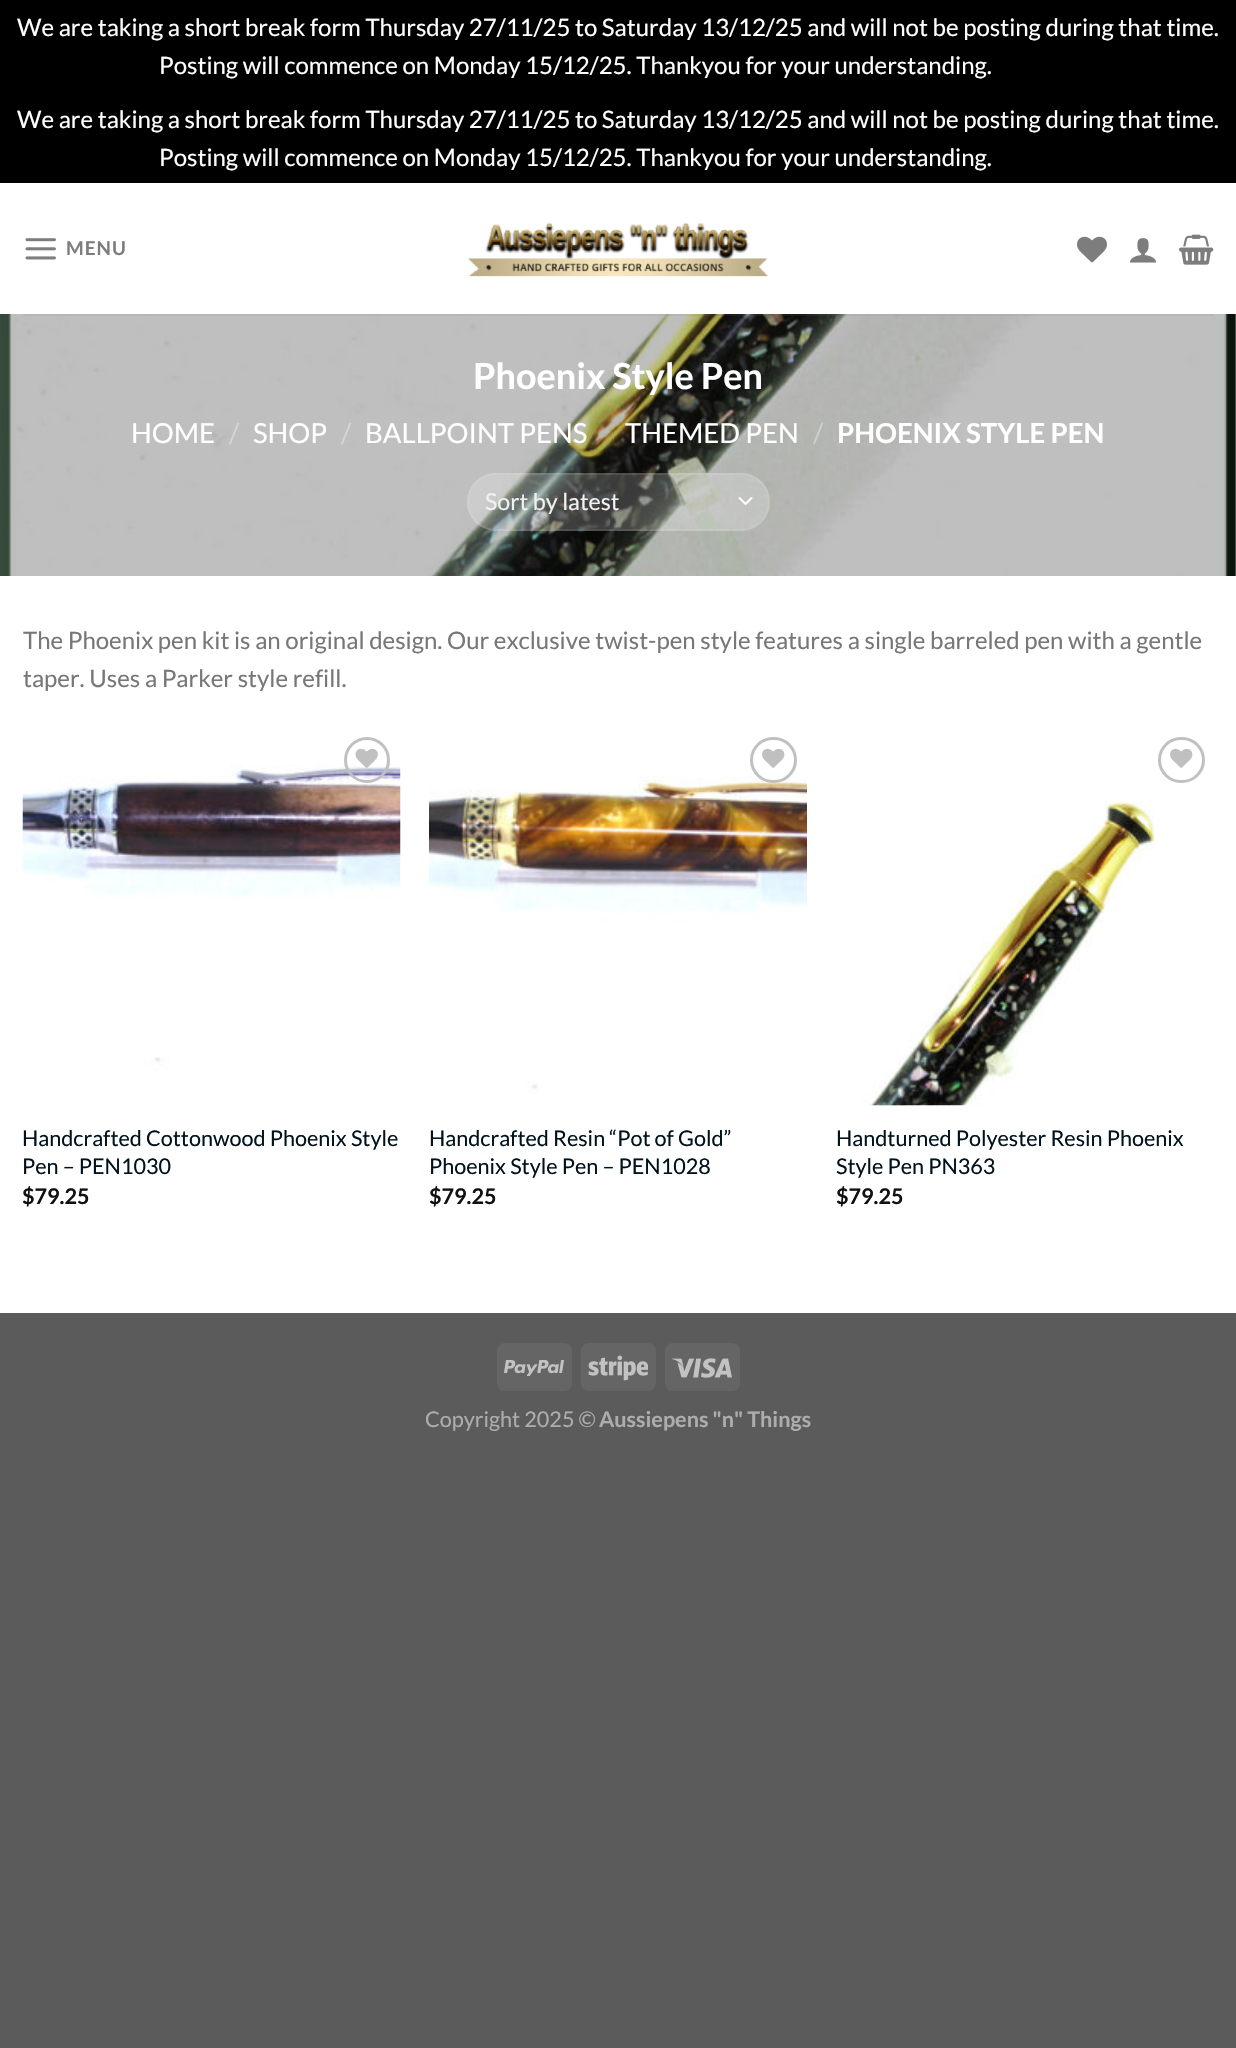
void draw(SkCanvas* canvas) {
	SkPaint fill;
	fill.setAntiAlias(true);
	auto makeFont = [&](const char* family, int weight, float size, bool italic = false) {
		SkFontStyle style(weight, SkFontStyle::kNormal_Width,
			italic ? SkFontStyle::kItalic_Slant : SkFontStyle::kUpright_Slant);
		SkFont result(fontMgr->matchFamilyStyle(family, style), size);
		result.setSubpixel(true);
		return result;
	};
	auto text = [&](const char* s, float x, float y, const SkFont& font) {
		canvas->drawString(s, x, y, font, fill);
	};
	auto spacedText = [&](const char* s, float x, float y, const SkFont& font, const SkPaint& ink, float letter, float word) {
		std::vector<SkGlyphID> glyphs(font.countText(s, strlen(s), SkTextEncoding::kUTF8));
		std::vector<float> xs(glyphs.size());
		font.textToGlyphs(s, strlen(s), SkTextEncoding::kUTF8, glyphs);
		font.getXPos(glyphs, xs, x);
		float extra = 0;
		for (size_t i = 0; i < glyphs.size(); i++) {
			xs[i] += extra;
			extra += letter + word * (glyphs[i] == font.unicharToGlyph(' '));
		}
		canvas->drawTextBlob(SkTextBlob::MakeFromPosHGlyphs(glyphs, xs, y, font), 0, 0, ink);
	};
	auto box = [&](float l, float t, float r, float b) {
		canvas->drawRect(SkRect::MakeLTRB(l, t, r, b), fill);
	};
	auto roundBox = [&](float l, float t, float r, float b, float radius) {
		canvas->drawRoundRect(SkRect::MakeLTRB(l, t, r, b), radius, radius, fill);
	};
	auto picture = [&](const char* path, float l, float t, float r, float b) {
		auto image = SkImages::DeferredFromEncodedData(SkData::MakeFromFileName(path));
		canvas->drawImageRect(image, SkRect::MakeLTRB(l, t, r, b), SkSamplingOptions());
	};
	canvas->clear(0xFF5B5B5B);
	fill.setColor(0xFF000000);
	box(0, 0, 1236, 183);
	fill.setColor(0xFFFFFFFF);
	box(0, 183, 1236, 1313);
	picture("image0.png", 25, 238, 56, 260);
	picture("image1.png", 468, 222, 768, 278);
	picture("image2.png", 1077, 236, 1107, 263);
	picture("image3.png", 1129, 238, 1157, 263);
	picture("image4.png", 1179, 234, 1214, 265);
	picture("image5.png", 0, 314, 1236, 576);
	fill.setColor(0x1A777777);
	box(23, 314, 1214, 316);
	fill.setColor(0x33FFFFFF);
	roundBox(467, 473, 770, 531, 29);
	fill.setStyle(SkPaint::kStroke_Style);
	fill.setStrokeWidth(2);
	fill.setStrokeCap(SkPaint::kRound_Cap);
	fill.setStrokeJoin(SkPaint::kRound_Join);
	fill.setColor(0xFFFFFFFF);
	canvas->drawPath(SkPathBuilder().moveTo(739.5f, 498).lineTo(745.5f, 504).lineTo(751.5f, 498).detach(), fill);
	fill.setStrokeCap(SkPaint::kButt_Cap);
	fill.setStrokeJoin(SkPaint::kMiter_Join);
	fill.setColor(0x17FFFFFF);
	canvas->drawRoundRect(SkRect::MakeLTRB(468, 474, 769, 530), 28, 28, fill);
	picture("image6.png", 22, 729, 401, 1082);
	fill.setStrokeWidth(3);
	fill.setColor(0xFFC0C0C0);
	canvas->drawCircle(367, 760, 21.5f, fill);
	picture("image7.png", 355, 748, 378, 768);
	picture("image8.png", 429, 729, 807, 1105);
	canvas->drawRoundRect(SkRect::MakeLTRB(751.5f, 738.5f, 795.5f, 781.5f), 21.5f, 21.5f, fill);
	picture("image9.png", 762, 748, 785, 768);
	picture("image11.png", 862, 1105, 1203, 1106);
	picture("image10.png", 862, 729, 1203, 1106);
	canvas->drawRoundRect(SkRect::MakeLTRB(1159.5f, 738.5f, 1203.5f, 781.5f), 21.5f, 21.5f, fill);
	picture("image9.png", 1170, 748, 1193, 768);
	fill.setStyle(SkPaint::kFill_Style);
	fill.setColor(0xFF656565);
	roundBox(497, 1343, 572, 1391, 8);
	picture("image12.png", 504, 1360, 564, 1376);
	roundBox(581, 1343, 656, 1391, 8);
	picture("image13.png", 588, 1355, 648, 1381);
	roundBox(665, 1343, 740, 1391, 8);
	picture("image14.png", 672, 1358, 732, 1378);
	auto font1 = makeFont("Lato", 400, 24);
	fill.setColor(0xFFFFFFFF);
	text("We are taking a short break form Thursday 27/11/25 to Saturday 13/12/25 and will not be posting during that time.", 17, 36, font1);
	text("Posting will commence on Monday 15/12/25. Thankyou for your understanding.", 159, 74, font1);
	text("We are taking a short break form Thursday 27/11/25 to Saturday 13/12/25 and will not be posting during that time.", 17, 128, font1);
	text("Posting will commence on Monday 15/12/25. Thankyou for your understanding.", 159, 166, font1);
	auto font2 = makeFont("Lato", 700, 19);
	fill.setColor(0xFF7D7D7D);
	spacedText("MENU", 66, 255, font2, fill, 1, 0);
	auto font3 = makeFont("Lato", 700, 36);
	fill.setColor(0xFFFFFFFF);
	text("Phoenix Style Pen", 473, 389, font3);
	auto font4 = makeFont("Lato", 400, 27.5f);
	text("HOME", 131, 443, font4);
	fill.setColor(0xFFD5D5D5);
	text("/", 229, 443, font4);
	fill.setColor(0xFFFFFFFF);
	text("SHOP", 253, 443, font4);
	fill.setColor(0xFFD5D5D5);
	text("/", 341, 443, font4);
	fill.setColor(0xFFFFFFFF);
	text("BALLPOINT PENS", 365, 443, font4);
	text("THEMED PEN", 625, 443, font4);
	fill.setColor(0xFFCECFCD);
	text("/", 813, 443, font4);
	auto font5 = makeFont("Lato", 700, 27.5f);
	fill.setColor(0xFFFFFFFF);
	text("PHOENIX STYLE PEN", 837, 443, font5);
	auto font6 = makeFont("Lato", 400, 23.25f);
	fill.setColor(0xFFF1F1F1);
	text("Sort by latest", 485, 510, font6);
	fill.setColor(0xFF777777);
	text("The Phoenix pen kit is an original design. Our exclusive twist-pen style features a single barreled pen with a gentle", 23, 649, font1);
	text("taper. Uses a Parker style refill.", 23, 687, font1);
	auto font7 = makeFont("Lato", 400, 21.6f);
	fill.setColor(0xFF00131D);
	text("Handcrafted Cottonwood Phoenix Style", 22, 1146, font7);
	text("Pen – PEN1030", 22, 1174, font7);
	auto font8 = makeFont("Lato", 700, 21.6f);
	fill.setColor(0xFF111111);
	text("$79.25", 22, 1204, font8);
	fill.setColor(0xFF00131D);
	text("Handcrafted Resin “Pot of Gold”", 429, 1146, font7);
	text("Phoenix Style Pen – PEN1028", 429, 1174, font7);
	fill.setColor(0xFF111111);
	text("$79.25", 429, 1204, font8);
	fill.setColor(0xFF00131D);
	text("Handturned Polyester Resin Phoenix", 836, 1146, font7);
	text("Style Pen PN363", 836, 1174, font7);
	fill.setColor(0xFF111111);
	text("$79.25", 836, 1204, font8);
	fill.setColor(0xFFADADAD);
	text("Copyright 2025 ©", 425, 1427, font7);
	text("Aussiepens \"n\" Things", 599, 1427, font8);
}
